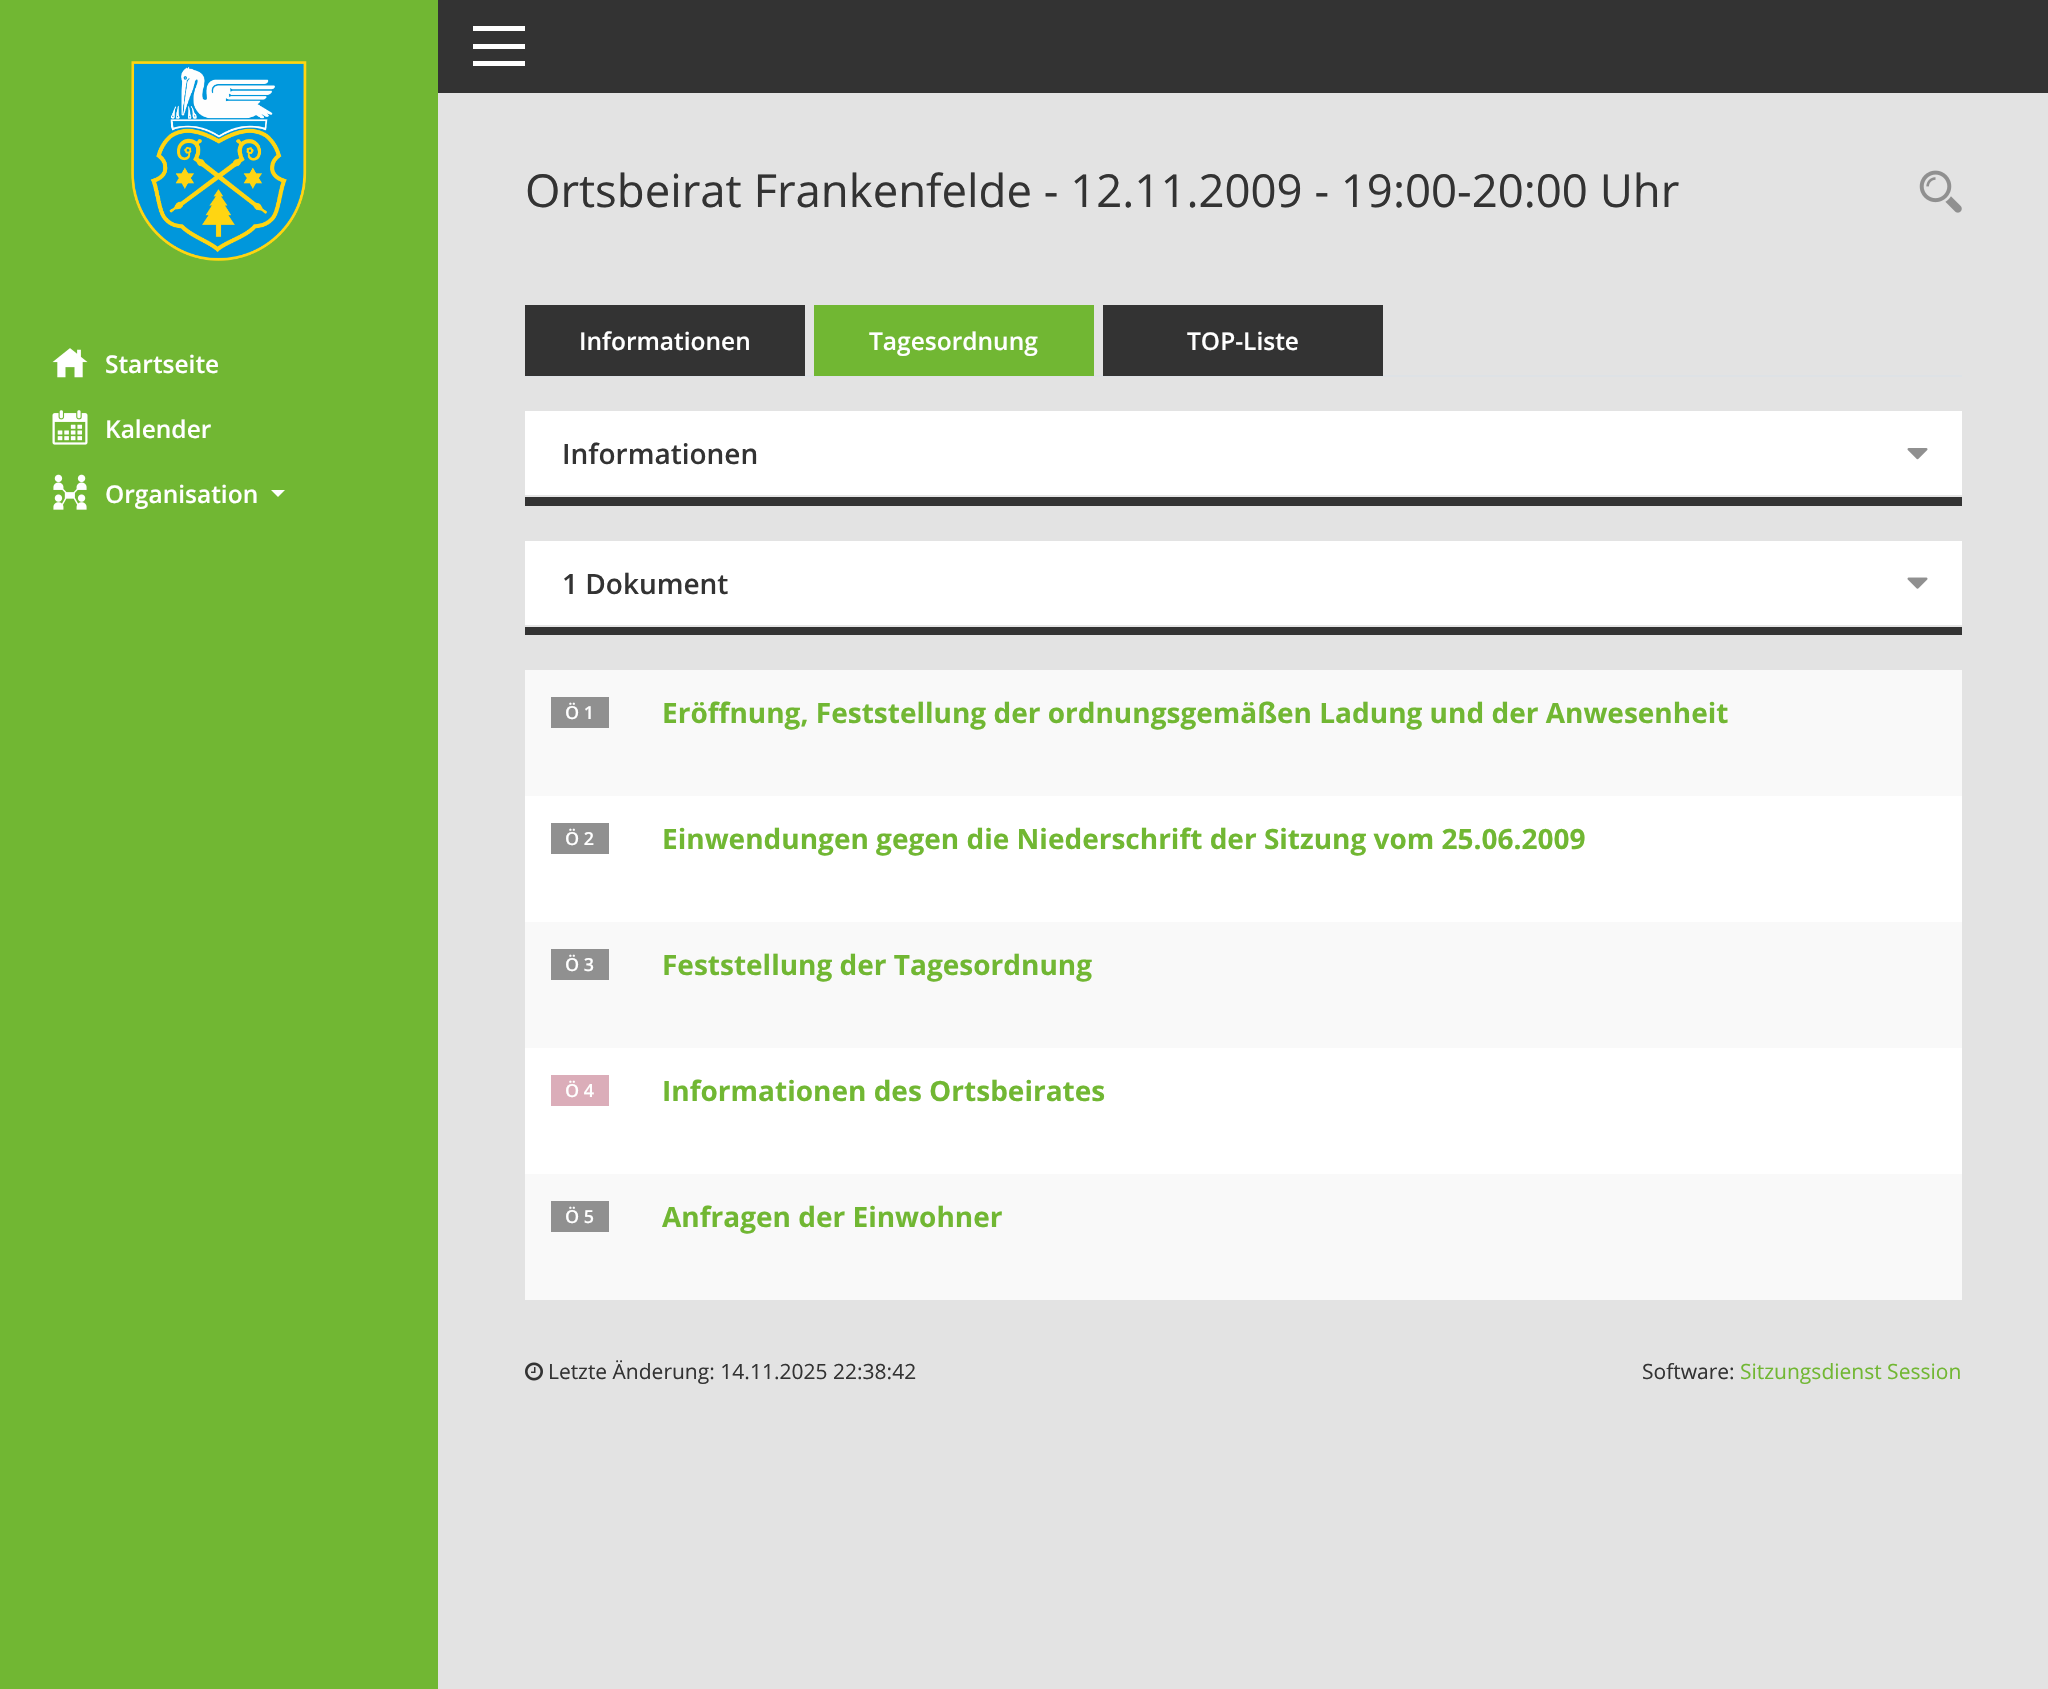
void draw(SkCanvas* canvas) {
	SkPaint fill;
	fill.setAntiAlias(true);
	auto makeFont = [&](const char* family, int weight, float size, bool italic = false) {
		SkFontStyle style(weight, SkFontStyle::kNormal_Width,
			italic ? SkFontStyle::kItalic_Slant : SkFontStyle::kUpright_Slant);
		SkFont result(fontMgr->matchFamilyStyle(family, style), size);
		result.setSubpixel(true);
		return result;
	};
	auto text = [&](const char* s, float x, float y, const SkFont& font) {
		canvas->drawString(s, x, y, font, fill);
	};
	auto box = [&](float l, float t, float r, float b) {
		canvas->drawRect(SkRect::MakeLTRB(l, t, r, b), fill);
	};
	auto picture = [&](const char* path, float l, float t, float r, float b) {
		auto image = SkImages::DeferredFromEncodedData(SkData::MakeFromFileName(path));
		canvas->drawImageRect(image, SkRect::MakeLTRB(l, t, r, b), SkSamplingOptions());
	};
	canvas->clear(0xFFE3E3E3);
	fill.setColor(0xFF71B733);
	box(0, 0, 438, 1689);
	picture("image0.png", 131, 61, 307, 261);
	picture("image1.png", 52, 348, 88, 378);
	picture("image2.png", 52, 410, 88, 445);
	picture("image3.png", 53, 474, 87, 510);
	fill.setColor(0xFFFFFFFF);
	canvas->drawPath(SkPathBuilder().moveTo(271, 490).lineTo(285, 490).lineTo(278, 497).close().detach(), fill);
	fill.setColor(0xFF333333);
	box(438, 0, 2048, 93);
	fill.setColor(0xFFFFFFFF);
	box(473, 26, 525, 31);
	box(473, 44, 525, 49);
	box(473, 61, 525, 66);
	picture("image4.png", 1919, 170, 1962, 213);
	fill.setColor(0xFFDEE2E6);
	box(525, 375, 1962, 377);
	fill.setColor(0xFF333333);
	box(525, 305, 805, 376);
	fill.setColor(0xFF71B733);
	box(814, 305, 1094, 376);
	fill.setColor(0xFF333333);
	box(1103, 305, 1383, 376);
	fill.setColor(0xFFFFFFFF);
	box(525, 411, 1962, 495);
	fill.setColor(0xFF333333);
	box(525, 497, 1962, 506);
	fill.setColor(0xFFE6E6E6);
	box(525, 495, 1962, 497);
	picture("image5.png", 1907, 448, 1928, 460);
	fill.setColor(0xFFFFFFFF);
	box(525, 541, 1962, 625);
	fill.setColor(0xFF333333);
	box(525, 627, 1962, 635);
	fill.setColor(0xFFE6E6E6);
	box(525, 625, 1962, 627);
	picture("image6.png", 1907, 577, 1928, 589);
	fill.setColor(0xFFFFFFFF);
	box(525, 796, 1962, 1174);
	fill.setColor(0xFFF9F9F9);
	box(525, 670, 1962, 796);
	fill.setColor(0xFF909090);
	box(551, 697, 609, 728);
	box(551, 823, 609, 854);
	fill.setColor(0xFFF9F9F9);
	box(525, 922, 1962, 1048);
	fill.setColor(0xFF909090);
	box(551, 949, 609, 980);
	fill.setColor(0xFFDBADB9);
	box(551, 1075, 609, 1106);
	fill.setColor(0xFFF9F9F9);
	box(525, 1174, 1962, 1300);
	fill.setColor(0xFF909090);
	box(551, 1201, 609, 1232);
	picture("image7.png", 525, 1362, 543, 1381);
	auto font1 = makeFont("Open Sans", 600, 24.5f);
	fill.setColor(0xFFFFFFFF);
	text("Startseite", 105, 373, font1);
	text("Kalender", 105, 438, font1);
	text("Organisation", 105, 503, font1);
	auto font2 = makeFont("Open Sans", 400, 45.5f);
	fill.setColor(0xFF333333);
	text("Ortsbeirat Frankenfelde - 12.11.2009 - 19:00-20:00 Uhr", 525, 207, font2);
	fill.setColor(0xFFFFFFFF);
	text("Informationen", 579, 350, font1);
	text("Tagesordnung", 869, 350, font1);
	text("TOP-Liste", 1187, 350, font1);
	auto font3 = makeFont("Open Sans", 600, 28);
	fill.setColor(0xFF333333);
	text("Informationen", 562, 464, font3);
	text("1 Dokument", 562, 594, font3);
	auto font4 = makeFont("Open Sans", 600, 18);
	fill.setColor(0xFFFFFFFF);
	text("Ö 1", 565, 719, font4);
	auto font5 = makeFont("Open Sans", 700, 28);
	fill.setColor(0xFF71B733);
	text("Eröffnung, Feststellung der ordnungsgemäßen Ladung und der Anwesenheit", 662, 723, font5);
	fill.setColor(0xFFFFFFFF);
	text("Ö 2", 565, 845, font4);
	fill.setColor(0xFF71B733);
	text("Einwendungen gegen die Niederschrift der Sitzung vom 25.06.2009", 662, 849, font5);
	fill.setColor(0xFFFFFFFF);
	text("Ö 3", 565, 971, font4);
	fill.setColor(0xFF71B733);
	text("Feststellung der Tagesordnung", 662, 975, font5);
	fill.setColor(0xFFFFFFFF);
	text("Ö 4", 565, 1097, font4);
	fill.setColor(0xFF71B733);
	text("Informationen des Ortsbeirates", 662, 1101, font5);
	fill.setColor(0xFFFFFFFF);
	text("Ö 5", 565, 1223, font4);
	fill.setColor(0xFF71B733);
	text("Anfragen der Einwohner", 662, 1227, font5);
	auto font6 = makeFont("Open Sans", 400, 21);
	fill.setColor(0xFF333333);
	text("Letzte Änderung: 14.11.2025 22:38:42", 548, 1379, font6);
	text("Software:", 1642, 1379, font6);
	fill.setColor(0xFF71B733);
	text("Sitzungsdienst Session", 1740, 1379, font6);
}
